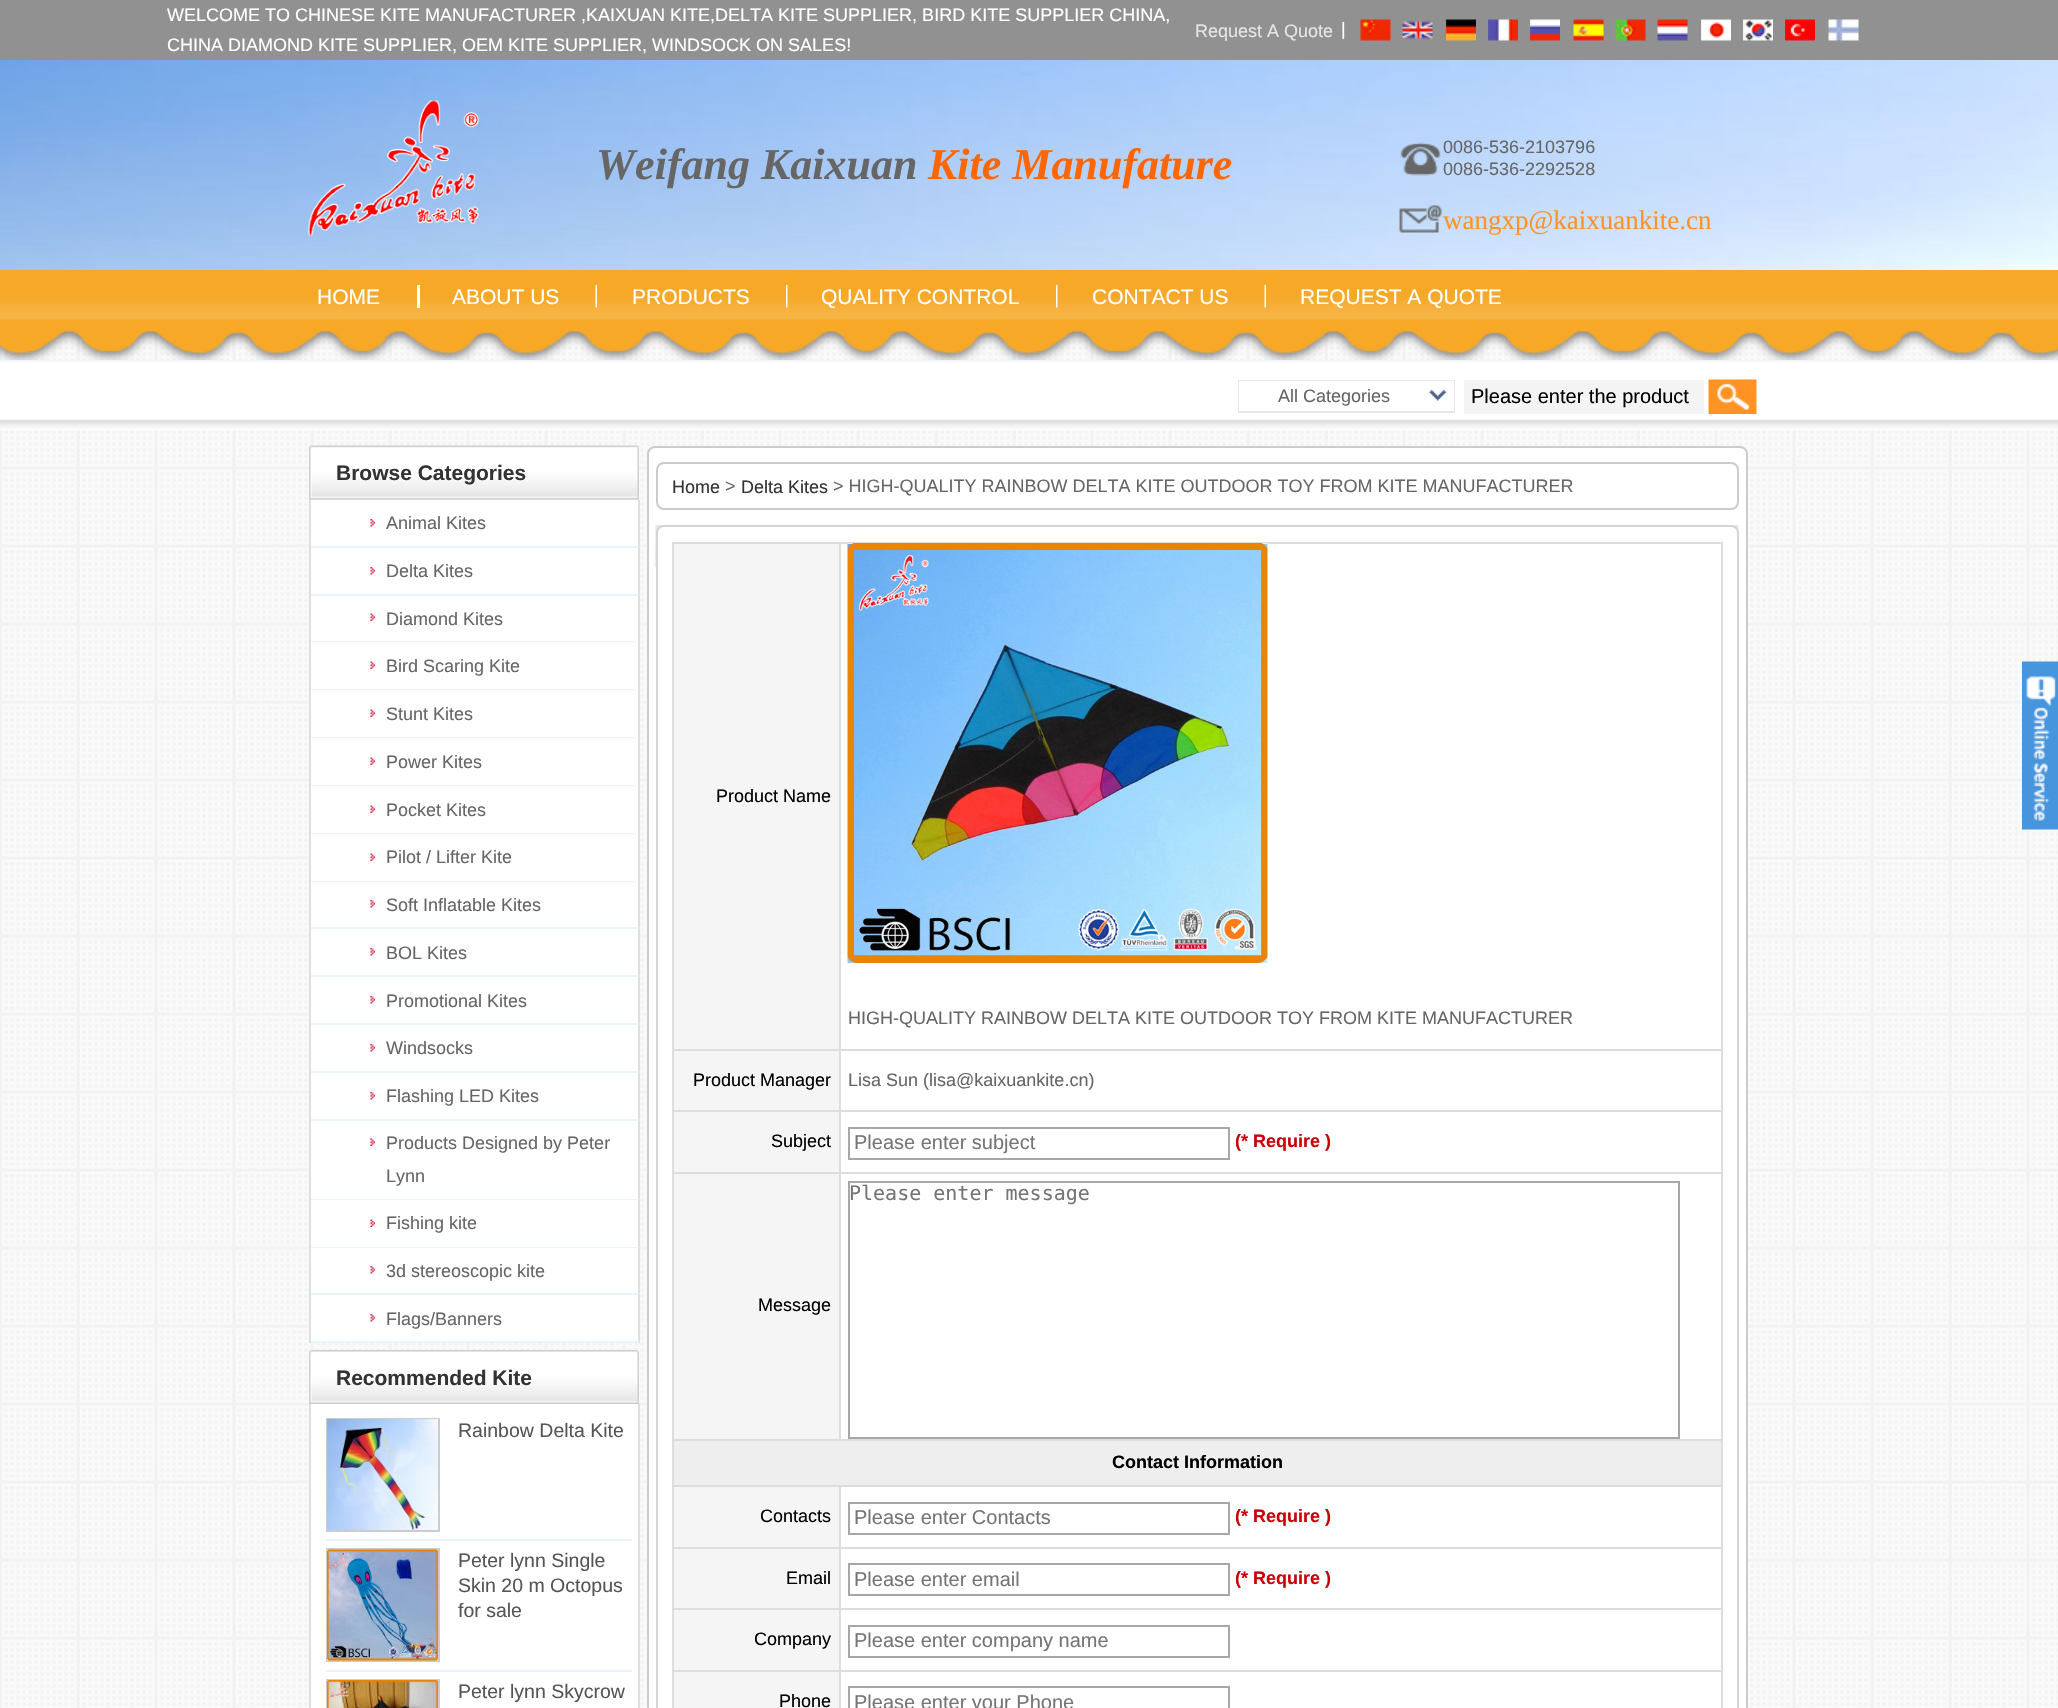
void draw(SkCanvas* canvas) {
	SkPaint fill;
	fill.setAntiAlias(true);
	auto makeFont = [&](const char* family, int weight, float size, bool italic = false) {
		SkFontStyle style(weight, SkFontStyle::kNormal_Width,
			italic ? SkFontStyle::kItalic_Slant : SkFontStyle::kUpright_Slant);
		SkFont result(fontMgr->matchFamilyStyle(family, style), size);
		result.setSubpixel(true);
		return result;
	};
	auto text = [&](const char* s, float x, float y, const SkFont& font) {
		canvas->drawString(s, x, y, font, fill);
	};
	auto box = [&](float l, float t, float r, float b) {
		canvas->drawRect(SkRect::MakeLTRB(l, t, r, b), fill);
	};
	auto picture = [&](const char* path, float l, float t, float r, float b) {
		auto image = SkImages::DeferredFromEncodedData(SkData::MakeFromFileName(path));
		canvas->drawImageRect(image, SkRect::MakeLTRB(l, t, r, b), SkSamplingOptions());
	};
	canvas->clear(0xFFFFFFFF);
	picture("image0.png", 0, 331, 2058, 1708);
	fill.setColor(0xFF919191);
	box(0, 0, 2058, 60);
	picture("image1.png", 1360, 19, 1391, 41);
	picture("image2.png", 1402, 20, 1433, 40);
	picture("image3.png", 1446, 19, 1476, 41);
	picture("image4.png", 1488, 19, 1518, 41);
	picture("image5.png", 1530, 19, 1560, 41);
	picture("image6.png", 1573, 19, 1604, 41);
	picture("image7.png", 1615, 19, 1646, 41);
	picture("image8.png", 1657, 19, 1688, 41);
	picture("image9.png", 1701, 19, 1731, 41);
	picture("image10.png", 1743, 19, 1773, 41);
	picture("image11.png", 1785, 19, 1815, 41);
	picture("image12.png", 1828, 19, 1859, 41);
	picture("image13.png", 0, 60, 2058, 270);
	picture("image14.png", 307, 100, 479, 236);
	picture("image15.png", 1400, 142, 1441, 176);
	picture("image16.png", 1399, 205, 1442, 233);
	picture("image17.png", 0, 270, 2058, 360);
	fill.setColor(0xFFFFFFFF);
	box(417, 285, 420, 308);
	picture("image18.png", 595, 285, 597, 308);
	picture("image19.png", 786, 285, 788, 308);
	picture("image19.png", 1056, 285, 1058, 308);
	picture("image18.png", 1264, 285, 1266, 308);
	picture("image20.png", 0, 362, 2058, 431);
	fill.setColor(0xFFF5F9FB);
	box(0, 360, 2058, 362);
	fill.setStyle(SkPaint::kStroke_Style);
	fill.setStrokeWidth(2);
	fill.setColor(0xFFE5E8EA);
	canvas->drawRect(SkRect::MakeLTRB(1239, 381, 1454, 412), fill);
	fill.setStyle(SkPaint::kFill_Style);
	fill.setColor(0xFFFFFFFF);
	box(1239, 381, 1454, 411);
	picture("image21.png", 1429, 389, 1447, 401);
	fill.setColor(0xFFF4F4F4);
	box(1464, 380, 1704, 414);
	picture("image22.png", 1708, 379, 1757, 414);
	fill.setColor(0xFFE9E9E9);
	box(309, 499, 639, 500);
	picture("image23.png", 309, 445, 639, 500);
	fill.setColor(0xFFFFFFFF);
	box(311, 500, 638, 546);
	fill.setColor(0xFFDFDFDF);
	box(638, 500, 640, 1343);
	fill.setColor(0xFFE7F3FF);
	box(309, 546, 639, 548);
	fill.setColor(0xFFDFDFDF);
	box(309, 500, 311, 548);
	picture("image24.png", 370, 519, 375, 527);
	fill.setColor(0xFFFFFFFF);
	box(311, 548, 638, 594);
	fill.setColor(0xFFE7F3FF);
	box(309, 594, 639, 596);
	fill.setColor(0xFFDFDFDF);
	box(309, 548, 311, 596);
	picture("image24.png", 370, 567, 375, 575);
	fill.setColor(0xFFFFFFFF);
	box(311, 596, 638, 641);
	fill.setColor(0xFFE7F3FF);
	box(309, 641, 639, 642);
	fill.setColor(0xFFDFDFDF);
	box(309, 596, 311, 642);
	picture("image25.png", 370, 613, 375, 621);
	fill.setColor(0xFFFFFFFF);
	box(311, 642, 638, 689);
	fill.setColor(0xFFE7F3FF);
	box(309, 689, 639, 690);
	fill.setColor(0xFFDFDFDF);
	box(309, 642, 311, 690);
	picture("image25.png", 370, 661, 375, 669);
	fill.setColor(0xFFFFFFFF);
	box(311, 690, 638, 737);
	fill.setColor(0xFFE7F3FF);
	box(309, 737, 639, 738);
	fill.setColor(0xFFDFDFDF);
	box(309, 690, 311, 738);
	picture("image25.png", 370, 709, 375, 717);
	fill.setColor(0xFFFFFFFF);
	box(311, 738, 638, 785);
	fill.setColor(0xFFE7F3FF);
	box(309, 785, 639, 786);
	fill.setColor(0xFFDFDFDF);
	box(309, 738, 311, 786);
	picture("image25.png", 370, 757, 375, 765);
	fill.setColor(0xFFFFFFFF);
	box(311, 786, 638, 833);
	fill.setColor(0xFFE7F3FF);
	box(309, 833, 639, 834);
	fill.setColor(0xFFDFDFDF);
	box(309, 786, 311, 834);
	picture("image25.png", 370, 805, 375, 813);
	fill.setColor(0xFFFFFFFF);
	box(311, 834, 638, 881);
	fill.setColor(0xFFE7F3FF);
	box(309, 881, 639, 882);
	fill.setColor(0xFFDFDFDF);
	box(309, 834, 311, 882);
	picture("image25.png", 370, 853, 375, 861);
	fill.setColor(0xFFFFFFFF);
	box(311, 882, 638, 927);
	fill.setColor(0xFFE7F3FF);
	box(309, 927, 639, 929);
	fill.setColor(0xFFDFDFDF);
	box(309, 882, 311, 929);
	picture("image24.png", 370, 900, 375, 908);
	fill.setColor(0xFFFFFFFF);
	box(311, 929, 638, 975);
	fill.setColor(0xFFE7F3FF);
	box(309, 975, 639, 977);
	fill.setColor(0xFFDFDFDF);
	box(309, 929, 311, 977);
	picture("image24.png", 370, 948, 375, 956);
	fill.setColor(0xFFFFFFFF);
	box(311, 977, 638, 1023);
	fill.setColor(0xFFE7F3FF);
	box(309, 1023, 639, 1025);
	fill.setColor(0xFFDFDFDF);
	box(309, 977, 311, 1025);
	picture("image24.png", 370, 996, 375, 1004);
	fill.setColor(0xFFFFFFFF);
	box(311, 1025, 638, 1071);
	fill.setColor(0xFFE7F3FF);
	box(309, 1071, 639, 1073);
	fill.setColor(0xFFDFDFDF);
	box(309, 1025, 311, 1073);
	picture("image24.png", 370, 1044, 375, 1052);
	fill.setColor(0xFFFFFFFF);
	box(311, 1073, 638, 1119);
	fill.setColor(0xFFE7F3FF);
	box(309, 1119, 639, 1121);
	fill.setColor(0xFFDFDFDF);
	box(309, 1073, 311, 1121);
	picture("image24.png", 370, 1092, 375, 1100);
	fill.setColor(0xFFFFFFFF);
	box(311, 1121, 638, 1199);
	fill.setColor(0xFFE7F3FF);
	box(309, 1199, 639, 1200);
	fill.setColor(0xFFDFDFDF);
	box(309, 1121, 311, 1200);
	picture("image25.png", 370, 1138, 375, 1146);
	fill.setColor(0xFFFFFFFF);
	box(311, 1200, 638, 1247);
	fill.setColor(0xFFE7F3FF);
	box(309, 1247, 639, 1248);
	fill.setColor(0xFFDFDFDF);
	box(309, 1200, 311, 1248);
	picture("image25.png", 370, 1219, 375, 1227);
	fill.setColor(0xFFFFFFFF);
	box(311, 1248, 638, 1293);
	fill.setColor(0xFFE7F3FF);
	box(309, 1293, 639, 1295);
	fill.setColor(0xFFDFDFDF);
	box(309, 1248, 311, 1295);
	picture("image24.png", 370, 1266, 375, 1274);
	fill.setColor(0xFFFFFFFF);
	box(311, 1295, 638, 1341);
	fill.setColor(0xFFE7F3FF);
	box(309, 1341, 639, 1343);
	fill.setColor(0xFFDFDFDF);
	box(309, 1295, 311, 1343);
	picture("image24.png", 370, 1314, 375, 1322);
	picture("image26.png", 309, 1350, 639, 1404);
	fill.setColor(0xFFFFFFFF);
	box(311, 1404, 638, 1708);
	fill.setColor(0xFFDFDFDF);
	box(638, 1404, 640, 1708);
	box(309, 1404, 311, 1708);
	fill.setColor(0xFFE7F3FF);
	box(326, 1539, 632, 1541);
	fill.setStyle(SkPaint::kStroke_Style);
	fill.setColor(0xFFCCCCCC);
	canvas->drawRect(SkRect::MakeLTRB(327, 1419, 439, 1531), fill);
	picture("image27.png", 327, 1419, 438, 1530);
	fill.setStyle(SkPaint::kFill_Style);
	fill.setColor(0xFFE7F3FF);
	box(326, 1670, 632, 1672);
	fill.setStyle(SkPaint::kStroke_Style);
	fill.setColor(0xFFCCCCCC);
	canvas->drawRect(SkRect::MakeLTRB(327, 1549, 439, 1661), fill);
	picture("image28.png", 327, 1549, 438, 1661);
	canvas->drawRect(SkRect::MakeLTRB(327, 1680, 439, 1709), fill);
	picture("image29.png", 327, 1680, 438, 1708);
	fill.setStyle(SkPaint::kFill_Style);
	fill.setColor(0xFFFFFFFF);
	canvas->drawRoundRect(SkRect::MakeLTRB(648, 447, 1747, 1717), 7, 7, fill);
	fill.setStyle(SkPaint::kStroke_Style);
	fill.setColor(0xFFCCCCCC);
	canvas->drawRoundRect(SkRect::MakeLTRB(648, 447, 1747, 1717), 7, 7, fill);
	canvas->drawRoundRect(SkRect::MakeLTRB(657, 463, 1738, 509), 7, 7, fill);
	picture("image30.png", 655, 525, 1739, 567);
	fill.setStyle(SkPaint::kFill_Style);
	fill.setColor(0xFFFFFFFF);
	canvas->drawRoundRect(SkRect::MakeLTRB(657, 526, 1738, 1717), 7, 7, fill);
	fill.setStyle(SkPaint::kStroke_Style);
	fill.setColor(0xFFD5D5D5);
	canvas->drawRoundRect(SkRect::MakeLTRB(657, 526, 1738, 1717), 7, 7, fill);
	fill.setStyle(SkPaint::kFill_Style);
	fill.setColor(0xFFDDDDDD);
	box(672, 542, 1722, 544);
	box(672, 1049, 1722, 1051);
	box(672, 1110, 1722, 1112);
	box(672, 1172, 1722, 1174);
	box(672, 1439, 1722, 1441);
	box(672, 1485, 1722, 1487);
	box(672, 1547, 1722, 1549);
	box(672, 1608, 1722, 1610);
	box(672, 1670, 1722, 1672);
	box(1721, 1670, 1723, 1708);
	box(1721, 1608, 1723, 1671);
	box(1721, 1547, 1723, 1610);
	box(1721, 1485, 1723, 1548);
	box(1721, 1439, 1723, 1487);
	box(1721, 1172, 1723, 1440);
	box(1721, 1110, 1723, 1173);
	box(1721, 1049, 1723, 1112);
	box(1721, 542, 1723, 1050);
	box(672, 1670, 674, 1708);
	box(672, 1608, 674, 1671);
	box(672, 1547, 674, 1610);
	box(672, 1485, 674, 1548);
	box(672, 1439, 674, 1487);
	box(672, 1172, 674, 1440);
	box(672, 1110, 674, 1173);
	box(672, 1049, 674, 1112);
	box(672, 542, 674, 1050);
	fill.setColor(0xFFF5F5F5);
	box(674, 544, 839, 1049);
	picture("image31.png", 847, 543, 1268, 963);
	box(674, 1051, 839, 1110);
	box(674, 1112, 839, 1172);
	fill.setStyle(SkPaint::kStroke_Style);
	fill.setColor(0xFFA7A7A7);
	canvas->drawRect(SkRect::MakeLTRB(849, 1128, 1229, 1159), fill);
	fill.setStyle(SkPaint::kFill_Style);
	fill.setColor(0xFFDDDDDD);
	box(839, 542, 841, 1440);
	fill.setStyle(SkPaint::kStroke_Style);
	fill.setColor(0xFFA7A7A7);
	canvas->drawRect(SkRect::MakeLTRB(849, 1182, 1679, 1438), fill);
	fill.setStyle(SkPaint::kFill_Style);
	fill.setColor(0xFFF5F5F5);
	box(674, 1174, 839, 1439);
	fill.setColor(0xFFEEEEEE);
	box(674, 1441, 1721, 1485);
	fill.setColor(0xFFF5F5F5);
	box(674, 1487, 839, 1547);
	fill.setStyle(SkPaint::kStroke_Style);
	fill.setColor(0xFFA7A7A7);
	canvas->drawRect(SkRect::MakeLTRB(849, 1503, 1229, 1534), fill);
	fill.setStyle(SkPaint::kFill_Style);
	fill.setColor(0xFFF5F5F5);
	box(674, 1549, 839, 1608);
	fill.setStyle(SkPaint::kStroke_Style);
	fill.setColor(0xFFA7A7A7);
	canvas->drawRect(SkRect::MakeLTRB(849, 1564, 1229, 1595), fill);
	fill.setStyle(SkPaint::kFill_Style);
	fill.setColor(0xFFF5F5F5);
	box(674, 1610, 839, 1670);
	fill.setStyle(SkPaint::kStroke_Style);
	fill.setColor(0xFFA7A7A7);
	canvas->drawRect(SkRect::MakeLTRB(849, 1626, 1229, 1657), fill);
	fill.setStyle(SkPaint::kFill_Style);
	fill.setColor(0xFFF5F5F5);
	box(674, 1672, 839, 1708);
	fill.setColor(0xFFDDDDDD);
	box(839, 1485, 841, 1708);
	fill.setStyle(SkPaint::kStroke_Style);
	fill.setColor(0xFFA7A7A7);
	canvas->drawRect(SkRect::MakeLTRB(849, 1687, 1229, 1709), fill);
	picture("image32.png", 2022, 661, 2058, 830);
	auto font1 = makeFont("Liberation Sans", 400, 18);
	fill.setStyle(SkPaint::kFill_Style);
	fill.setColor(0xFFFFFFFF);
	text("WELCOME TO CHINESE KITE MANUFACTURER ,KAIXUAN KITE,DELTA KITE SUPPLIER, BIRD KITE SUPPLIER CHINA,", 167, 21, font1);
	text("CHINA DIAMOND KITE SUPPLIER, OEM KITE SUPPLIER, WINDSOCK ON SALES!", 167, 51, font1);
	fill.setColor(0xFFE6E6E6);
	text("Request A Quote", 1195, 37, font1);
	fill.setColor(0xFFFFFFFF);
	text("|", 1341, 35, font1);
	auto font2 = makeFont("Liberation Serif", 700, 44, true);
	fill.setColor(0xFF666666);
	text("Weifang Kaixuan", 596, 179, font2);
	fill.setColor(0xFFFF6600);
	text("Kite Manufature", 928, 179, font2);
	fill.setColor(0xFF666666);
	text("0086-536-2103796", 1443, 153, font1);
	text("0086-536-2292528", 1443, 175, font1);
	auto font3 = makeFont("Liberation Serif", 400, 27);
	fill.setColor(0xFFFF9324);
	text("wangxp@kaixuankite.cn", 1443, 229, font3);
	auto font4 = makeFont("Liberation Sans", 400, 21);
	fill.setColor(0xFFFFFFFF);
	text("HOME", 317, 304, font4);
	text("ABOUT US", 452, 304, font4);
	text("PRODUCTS", 632, 304, font4);
	text("QUALITY CONTROL", 821, 304, font4);
	text("CONTACT US", 1092, 304, font4);
	text("REQUEST A QUOTE", 1300, 304, font4);
	fill.setColor(0xFF666666);
	text("All Categories", 1278, 402, font1);
	auto font5 = makeFont("Liberation Sans", 400, 20);
	fill.setColor(0xFF000000);
	text("Please enter the product", 1471, 403, font5);
	auto font6 = makeFont("Liberation Sans", 700, 21);
	fill.setColor(0xFF333333);
	text("Browse Categories", 336, 480, font6);
	fill.setColor(0xFF666666);
	text("Animal Kites", 386, 529, font1);
	text("Delta Kites", 386, 577, font1);
	text("Diamond Kites", 386, 625, font1);
	text("Bird Scaring Kite", 386, 672, font1);
	text("Stunt Kites", 386, 720, font1);
	text("Power Kites", 386, 768, font1);
	text("Pocket Kites", 386, 816, font1);
	text("Pilot / Lifter Kite", 386, 863, font1);
	text("Soft Inflatable Kites", 386, 911, font1);
	text("BOL Kites", 386, 959, font1);
	text("Promotional Kites", 386, 1007, font1);
	text("Windsocks", 386, 1054, font1);
	text("Flashing LED Kites", 386, 1102, font1);
	text("Products Designed by Peter", 386, 1149, font1);
	text("Lynn", 386, 1182, font1);
	text("Fishing kite", 386, 1229, font1);
	text("3d stereoscopic kite", 386, 1277, font1);
	text("Flags/Banners", 386, 1325, font1);
	fill.setColor(0xFF333333);
	text("Recommended Kite", 336, 1385, font6);
	auto font7 = makeFont("Liberation Sans", 400, 19.5f);
	fill.setColor(0xFF555555);
	text("Rainbow Delta Kite", 458, 1437, font7);
	text("Peter lynn Single", 458, 1567, font7);
	text("Skin 20 m Octopus", 458, 1592, font7);
	text("for sale", 458, 1617, font7);
	text("Peter lynn Skycrow", 458, 1698, font7);
	fill.setColor(0xFF333333);
	text("Home", 672, 493, font1);
	fill.setColor(0xFF666666);
	text(">", 725, 492, font1);
	fill.setColor(0xFF333333);
	text("Delta Kites", 741, 493, font1);
	fill.setColor(0xFF666666);
	text("> HIGH-QUALITY RAINBOW DELTA KITE OUTDOOR TOY FROM KITE MANUFACTURER", 833, 492, font1);
	fill.setColor(0xFF000000);
	text("Product Name", 716, 802, font1);
	fill.setColor(0xFF666666);
	text("HIGH-QUALITY RAINBOW DELTA KITE OUTDOOR TOY FROM KITE MANUFACTURER", 848, 1024, font1);
	fill.setColor(0xFF000000);
	text("Product Manager", 693, 1086, font1);
	fill.setColor(0xFF666666);
	text("Lisa Sun (lisa@kaixuankite.cn)", 848, 1086, font1);
	fill.setColor(0xFF000000);
	text("Subject", 771, 1147, font1);
	fill.setColor(0xFF757575);
	text("Please enter subject", 854, 1149, font5);
	auto font8 = makeFont("Liberation Sans", 700, 18);
	fill.setColor(0xFFCA0007);
	text("(* Require )", 1235, 1147, font8);
	auto font9 = makeFont("DejaVu Sans Mono", 400, 20);
	fill.setColor(0xFF757575);
	text("Please enter message", 849, 1200, font9);
	fill.setColor(0xFF000000);
	text("Message", 758, 1311, font1);
	text("Contact Information", 1112, 1468, font8);
	text("Contacts", 760, 1522, font1);
	fill.setColor(0xFF757575);
	text("Please enter Contacts", 854, 1524, font5);
	fill.setColor(0xFFCA0007);
	text("(* Require )", 1235, 1522, font8);
	fill.setColor(0xFF000000);
	text("Email", 786, 1584, font1);
	fill.setColor(0xFF757575);
	text("Please enter email", 854, 1586, font5);
	fill.setColor(0xFFCA0007);
	text("(* Require )", 1235, 1584, font8);
	fill.setColor(0xFF000000);
	text("Company", 754, 1645, font1);
	fill.setColor(0xFF757575);
	text("Please enter company name", 854, 1647, font5);
	fill.setColor(0xFF000000);
	text("Phone", 779, 1707, font1);
	fill.setColor(0xFF757575);
	text("Please enter your Phone", 854, 1709, font5);
}
